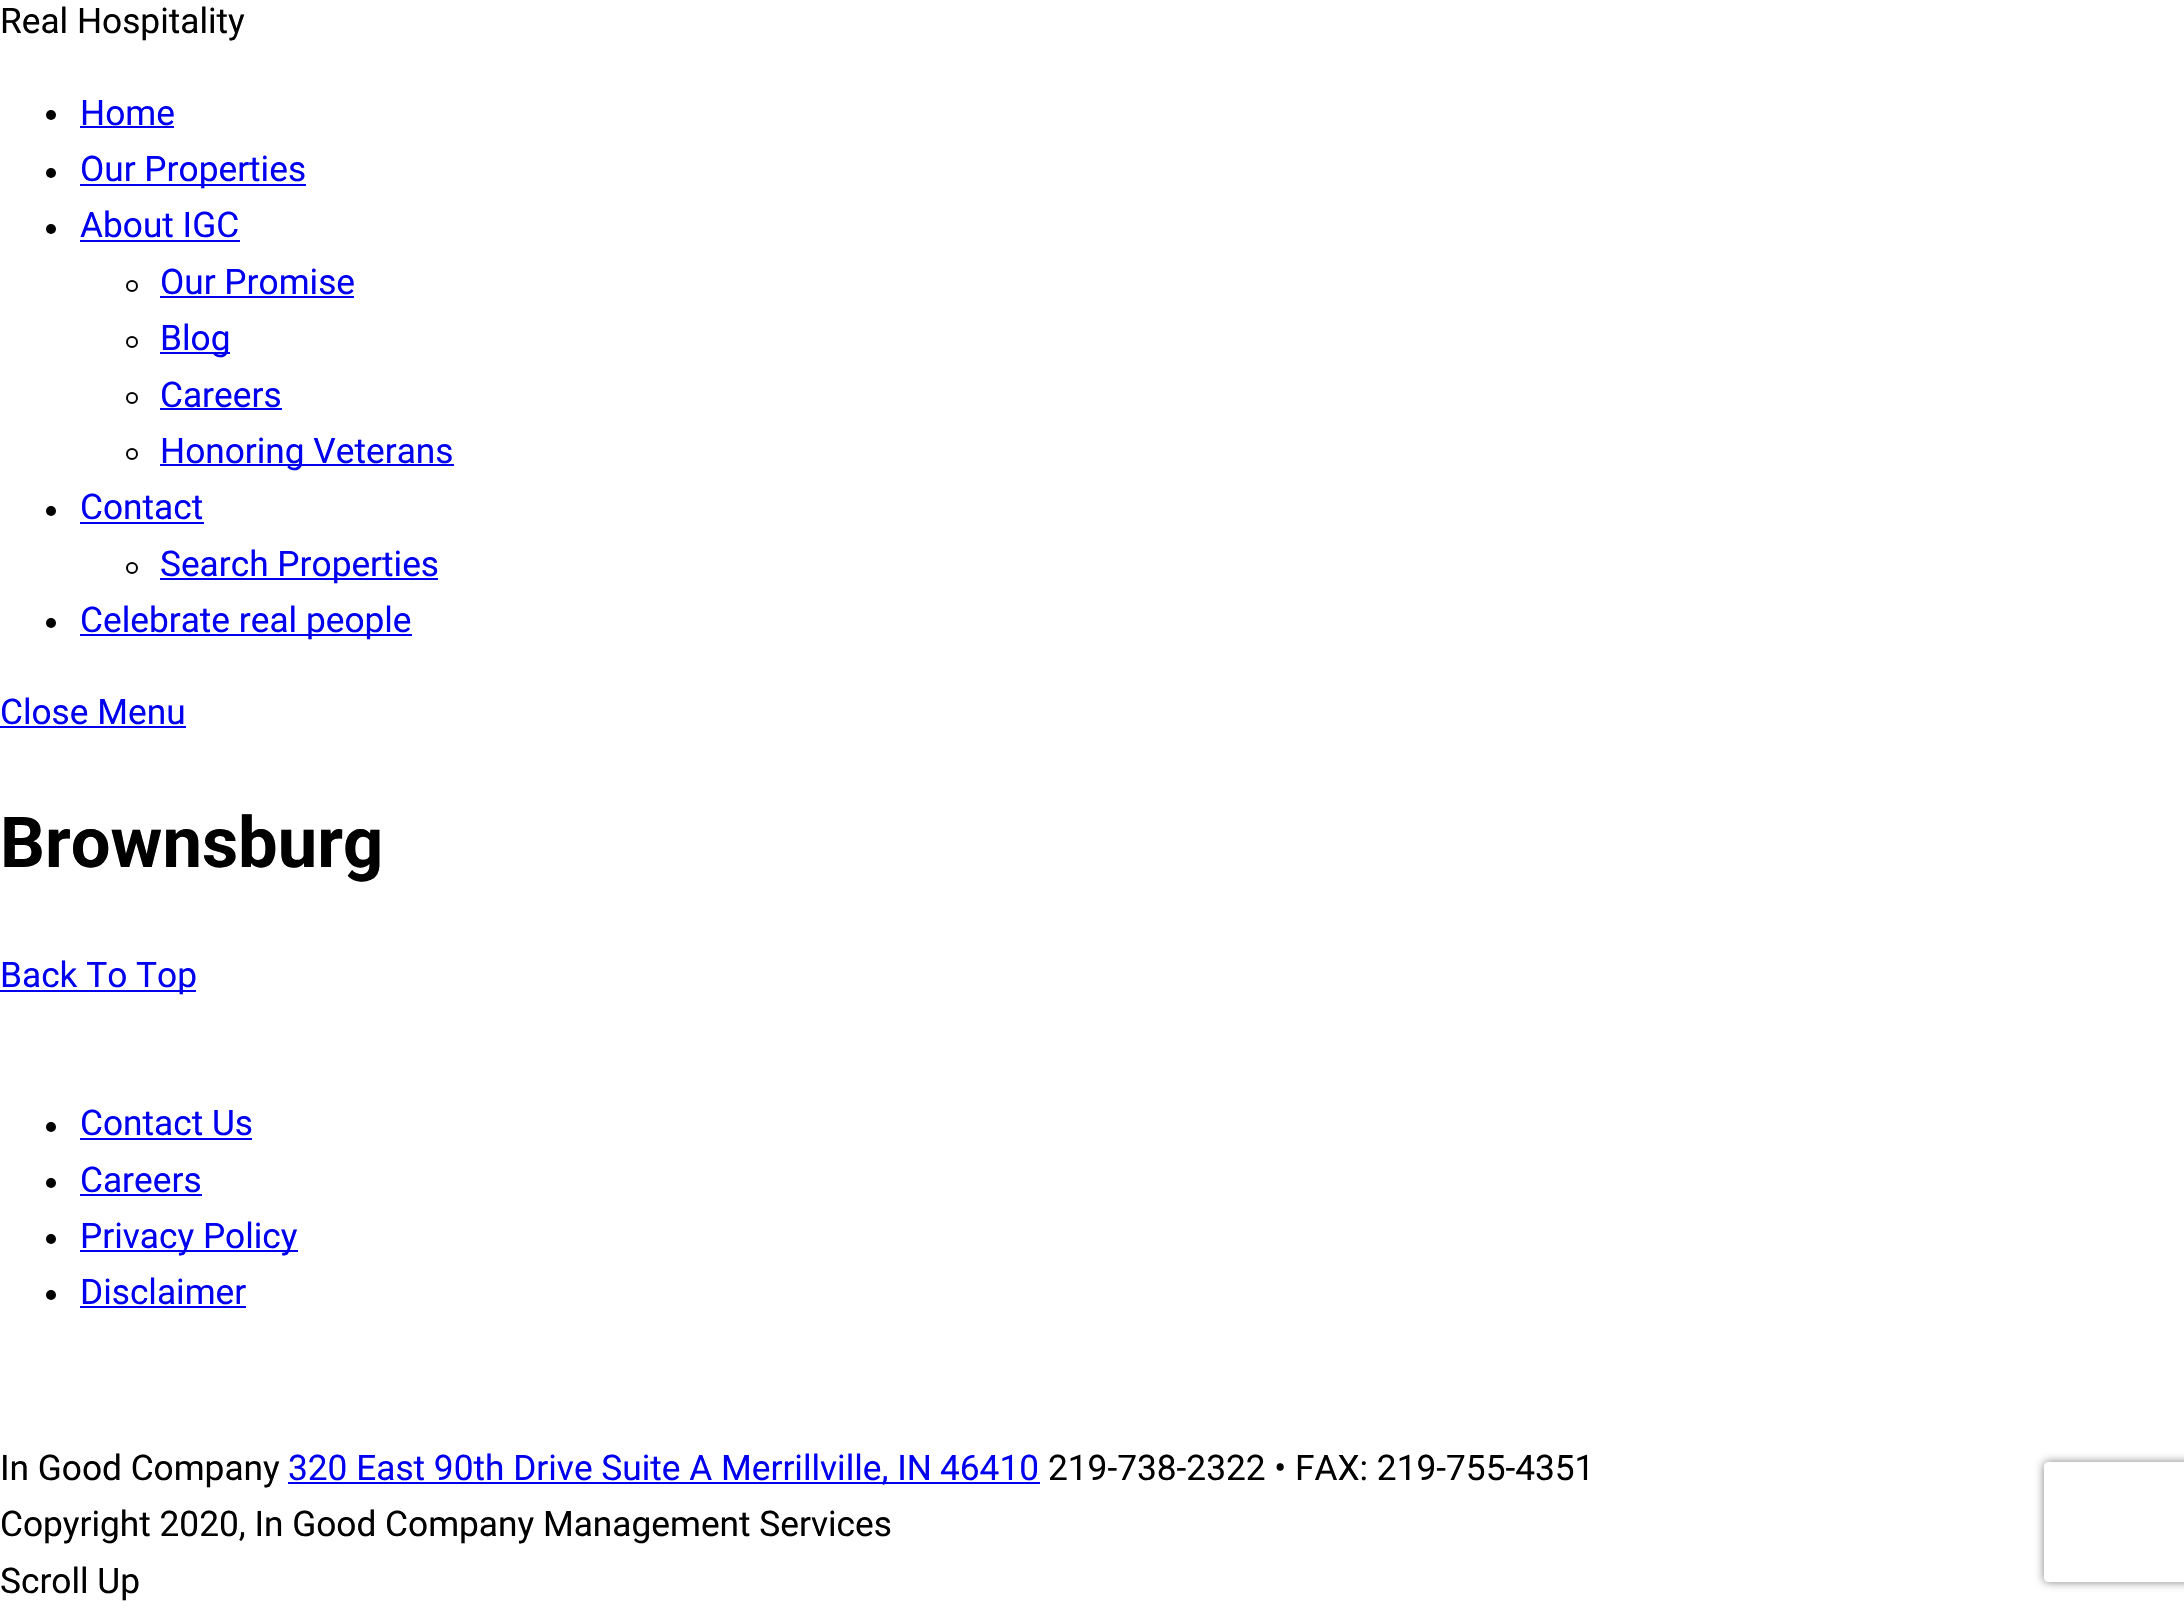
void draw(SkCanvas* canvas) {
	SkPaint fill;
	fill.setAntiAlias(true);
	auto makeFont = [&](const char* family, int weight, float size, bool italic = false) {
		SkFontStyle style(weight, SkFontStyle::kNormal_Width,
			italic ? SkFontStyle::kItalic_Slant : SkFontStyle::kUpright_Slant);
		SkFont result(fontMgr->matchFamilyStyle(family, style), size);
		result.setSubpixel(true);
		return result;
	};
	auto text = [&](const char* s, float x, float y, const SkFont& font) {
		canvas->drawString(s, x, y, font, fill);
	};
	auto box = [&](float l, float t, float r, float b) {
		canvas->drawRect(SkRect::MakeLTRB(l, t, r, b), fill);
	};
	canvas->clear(0xFFFFFFFF);
	fill.setColor(0xFF000000);
	canvas->drawCircle(51, 115, 5, fill);
	fill.setColor(0xFF0000EE);
	box(80, 126, 174, 128);
	fill.setColor(0xFF000000);
	canvas->drawCircle(51, 173, 5, fill);
	fill.setColor(0xFF0000EE);
	box(80, 184, 306, 186);
	fill.setColor(0xFF000000);
	canvas->drawCircle(51, 229, 5, fill);
	fill.setColor(0xFF0000EE);
	box(80, 240, 240, 242);
	fill.setStyle(SkPaint::kStroke_Style);
	fill.setStrokeWidth(2);
	fill.setColor(0xFF000000);
	canvas->drawCircle(132, 286, 5, fill);
	fill.setStyle(SkPaint::kFill_Style);
	fill.setColor(0xFF0000EE);
	box(160, 296, 354, 298);
	fill.setStyle(SkPaint::kStroke_Style);
	fill.setColor(0xFF000000);
	canvas->drawCircle(132, 342, 5, fill);
	fill.setStyle(SkPaint::kFill_Style);
	fill.setColor(0xFF0000EE);
	box(160, 352, 230, 354);
	fill.setStyle(SkPaint::kStroke_Style);
	fill.setColor(0xFF000000);
	canvas->drawCircle(132, 398, 5, fill);
	fill.setStyle(SkPaint::kFill_Style);
	fill.setColor(0xFF0000EE);
	box(160, 408, 282, 410);
	fill.setStyle(SkPaint::kStroke_Style);
	fill.setColor(0xFF000000);
	canvas->drawCircle(132, 454, 5, fill);
	fill.setStyle(SkPaint::kFill_Style);
	fill.setColor(0xFF0000EE);
	box(160, 464, 454, 466);
	fill.setColor(0xFF000000);
	canvas->drawCircle(51, 511, 5, fill);
	fill.setColor(0xFF0000EE);
	box(80, 522, 204, 524);
	fill.setStyle(SkPaint::kStroke_Style);
	fill.setColor(0xFF000000);
	canvas->drawCircle(132, 568, 5, fill);
	fill.setStyle(SkPaint::kFill_Style);
	fill.setColor(0xFF0000EE);
	box(160, 578, 438, 580);
	fill.setColor(0xFF000000);
	canvas->drawCircle(51, 623, 5, fill);
	fill.setColor(0xFF0000EE);
	box(80, 634, 412, 636);
	box(0, 726, 186, 728);
	box(0, 990, 196, 992);
	fill.setColor(0xFF000000);
	canvas->drawCircle(51, 1127, 5, fill);
	fill.setColor(0xFF0000EE);
	box(80, 1138, 252, 1140);
	fill.setColor(0xFF000000);
	canvas->drawCircle(51, 1183, 5, fill);
	fill.setColor(0xFF0000EE);
	box(80, 1194, 202, 1196);
	fill.setColor(0xFF000000);
	canvas->drawCircle(51, 1239, 5, fill);
	fill.setColor(0xFF0000EE);
	box(80, 1250, 298, 1252);
	fill.setColor(0xFF000000);
	canvas->drawCircle(51, 1295, 5, fill);
	fill.setColor(0xFF0000EE);
	box(80, 1306, 246, 1308);
	box(288, 1482, 1040, 1484);
	canvas->save();
	canvas->clipPath(SkPathBuilder(SkPathFillType::kEvenOdd).moveTo(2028, 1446).lineTo(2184, 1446).lineTo(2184, 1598).lineTo(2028, 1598).close().moveTo(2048, 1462).lineTo(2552, 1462).cubicTo(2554, 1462, 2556, 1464, 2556, 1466).lineTo(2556, 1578).cubicTo(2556, 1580, 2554, 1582, 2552, 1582).lineTo(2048, 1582).cubicTo(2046, 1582, 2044, 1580, 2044, 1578).lineTo(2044, 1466).cubicTo(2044, 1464, 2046, 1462, 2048, 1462).close().detach(), true);
	fill.setColor(0xFF808080);
	fill.setMaskFilter(SkMaskFilter::MakeBlur(kNormal_SkBlurStyle, 5));
	canvas->drawRoundRect(SkRect::MakeLTRB(2044, 1462, 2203, 1582), 4, 4, fill);
	fill.setMaskFilter(nullptr);
	canvas->restore();
	auto font1 = makeFont("Roboto", 400, 35.25f);
	fill.setColor(0xFF000000);
	text("Real Hospitality", 0, 33, font1);
	fill.setColor(0xFF0000EE);
	text("Home", 80, 125, font1);
	text("Our Properties", 80, 181, font1);
	text("About IGC", 80, 237, font1);
	text("Our Promise", 160, 294, font1);
	text("Blog", 160, 350, font1);
	text("Careers", 160, 407, font1);
	text("Honoring Veterans", 160, 463, font1);
	text("Contact", 80, 519, font1);
	text("Search Properties", 160, 576, font1);
	text("Celebrate real people", 80, 632, font1);
	text("Close Menu", 0, 724, font1);
	auto font2 = makeFont("Roboto", 700, 70.5f);
	fill.setColor(0xFF000000);
	text("Brownsburg", 0, 867, font2);
	fill.setColor(0xFF0000EE);
	text("Back To Top", 0, 987, font1);
	text("Contact Us", 80, 1135, font1);
	text("Careers", 80, 1192, font1);
	text("Privacy Policy", 80, 1248, font1);
	text("Disclaimer", 80, 1304, font1);
	fill.setColor(0xFF000000);
	text("In Good Company", 0, 1480, font1);
	fill.setColor(0xFF0000EE);
	text("320 East 90th Drive Suite A Merrillville, IN", 288, 1480, font1);
	text("46410", 940, 1480, font1);
	fill.setColor(0xFF000000);
	text("219-738-2322 • FAX: 219-755-4351", 1048, 1480, font1);
	text("Copyright 2020, In Good Company Management Services", 0, 1536, font1);
	text("Scroll Up", 0, 1593, font1);
}
